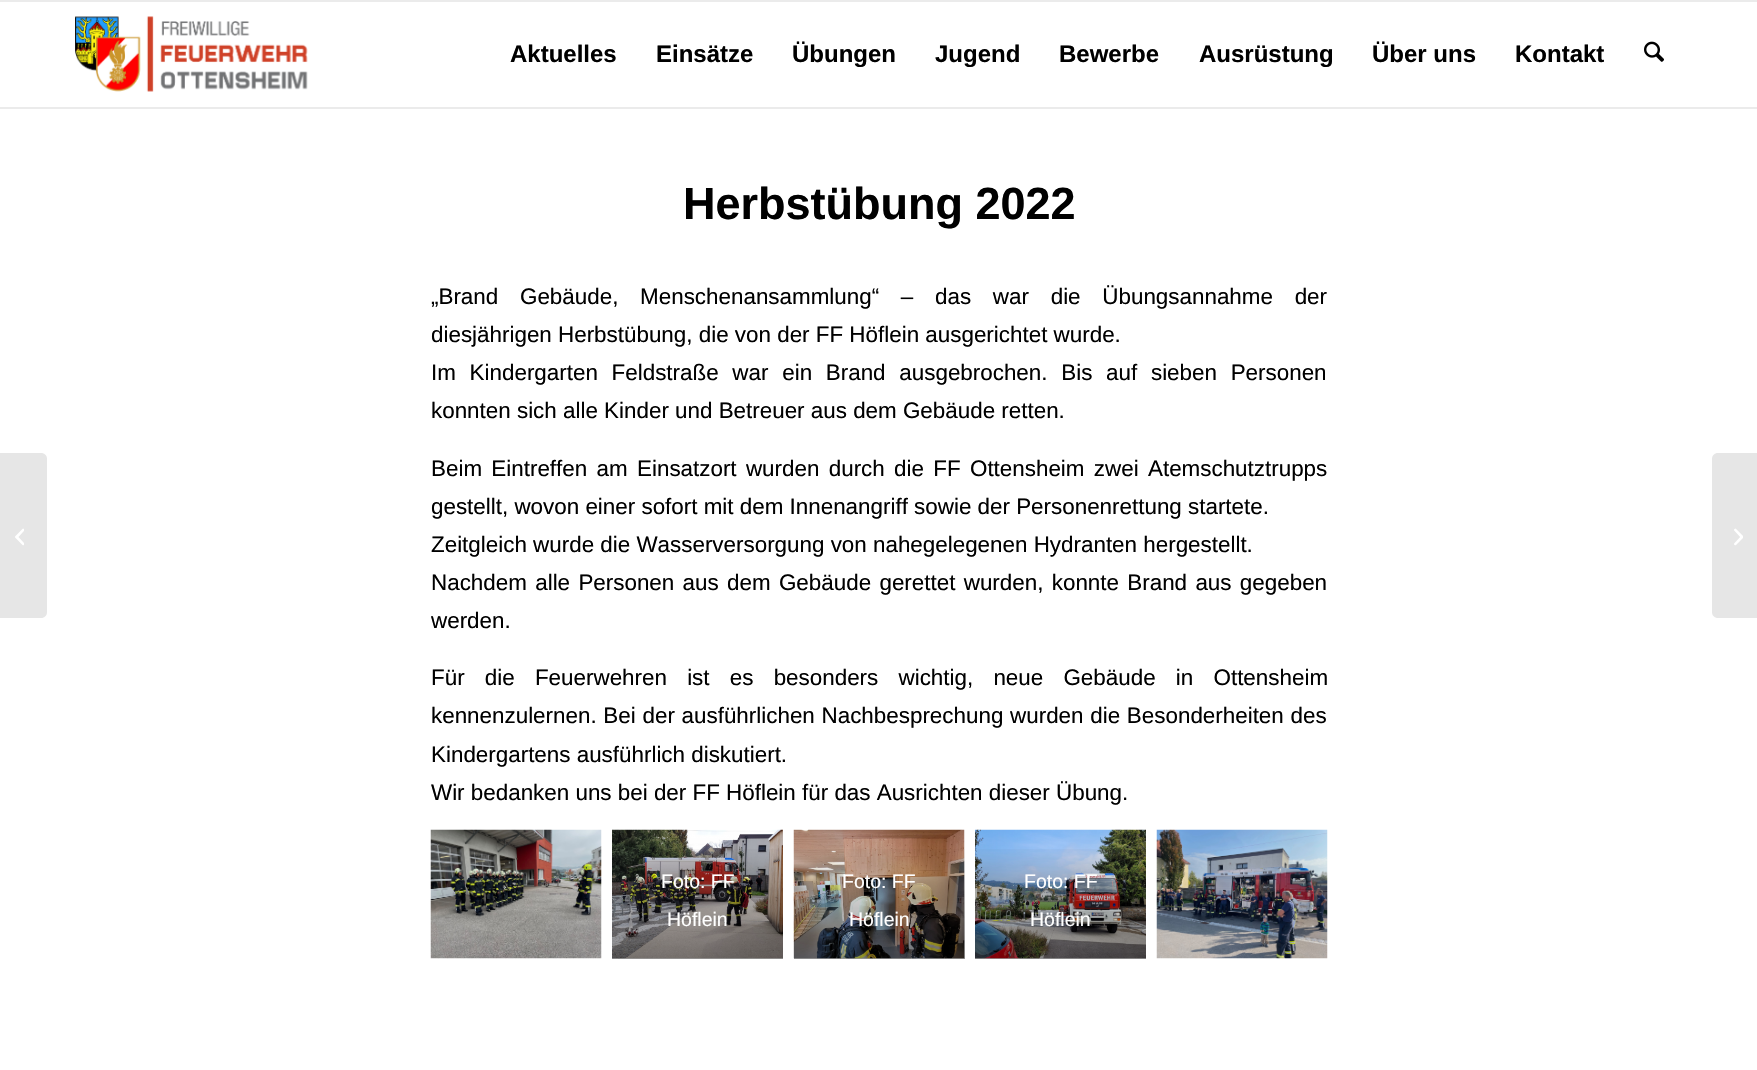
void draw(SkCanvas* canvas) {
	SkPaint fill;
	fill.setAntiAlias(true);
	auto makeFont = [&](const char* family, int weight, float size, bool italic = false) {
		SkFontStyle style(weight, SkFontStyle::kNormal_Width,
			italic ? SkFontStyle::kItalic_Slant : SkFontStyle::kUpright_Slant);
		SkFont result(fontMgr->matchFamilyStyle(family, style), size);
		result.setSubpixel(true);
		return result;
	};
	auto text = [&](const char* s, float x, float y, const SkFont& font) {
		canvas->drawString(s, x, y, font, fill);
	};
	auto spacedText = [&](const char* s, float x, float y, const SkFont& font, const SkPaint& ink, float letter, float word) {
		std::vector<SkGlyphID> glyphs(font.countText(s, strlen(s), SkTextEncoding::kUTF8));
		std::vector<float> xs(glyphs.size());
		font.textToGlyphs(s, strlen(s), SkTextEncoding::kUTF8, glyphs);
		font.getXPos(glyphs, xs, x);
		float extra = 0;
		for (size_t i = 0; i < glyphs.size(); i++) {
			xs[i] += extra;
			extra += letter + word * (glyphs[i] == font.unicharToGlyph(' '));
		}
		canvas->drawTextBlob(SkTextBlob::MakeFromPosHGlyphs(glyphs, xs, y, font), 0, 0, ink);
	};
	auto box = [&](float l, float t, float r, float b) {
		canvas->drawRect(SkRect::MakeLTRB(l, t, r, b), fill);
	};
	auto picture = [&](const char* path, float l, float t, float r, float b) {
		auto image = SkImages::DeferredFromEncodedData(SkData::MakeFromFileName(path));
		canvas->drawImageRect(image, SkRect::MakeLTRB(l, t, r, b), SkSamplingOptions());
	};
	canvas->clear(0xFFFFFFFF);
	fill.setColor(0xFFEBEBEB);
	box(0, 0, 1757, 2);
	box(0, 107, 1757, 109);
	picture("image0.png", 75, 16, 308, 92);
	picture("image1.png", 1644, 41, 1664, 62);
	fill.setColor(0xFFE6E6E6);
	canvas->drawPath(SkPathBuilder().moveTo(0, 453).lineTo(41, 453).cubicTo(44.5f, 453, 47, 455.5f, 47, 459).lineTo(47, 612).cubicTo(47, 615.5f, 44.5f, 618, 41, 618).lineTo(0, 618).close().detach(), fill);
	picture("image2.png", 15, 528, 24, 546);
	picture("image3.png", 430, 829, 602, 959);
	picture("image4.png", 612, 829, 783, 959);
	{
		const SkColor colors[] = {0x66000000, 0x00000000};
		const float stops[] = {0, 1};
		const SkPoint ends[] = {{698, 959}, {698, 843}};
		fill.setShader(SkGradientShader::MakeLinear(ends, colors, stops, 2, SkTileMode::kClamp));
		fill.setAlpha(255);
	}
	box(612, 849, 783, 959);
	picture("image5.png", 793, 829, 965, 959);
	{
		const SkColor colors[] = {0x66000000, 0x00000000};
		const float stops[] = {0, 1};
		const SkPoint ends[] = {{879, 959}, {879, 843}};
		fill.setShader(SkGradientShader::MakeLinear(ends, colors, stops, 2, SkTileMode::kClamp));
		fill.setAlpha(255);
	}
	box(794, 849, 965, 959);
	picture("image6.png", 975, 829, 1146, 959);
	{
		const SkColor colors[] = {0x66000000, 0x00000000};
		const float stops[] = {0, 1};
		const SkPoint ends[] = {{1061, 959}, {1061, 843}};
		fill.setShader(SkGradientShader::MakeLinear(ends, colors, stops, 2, SkTileMode::kClamp));
		fill.setAlpha(255);
	}
	box(975, 849, 1146, 959);
	picture("image7.png", 1156, 829, 1328, 959);
	fill.setShader(nullptr);
	fill.setColor(0xFFE6E6E6);
	canvas->drawPath(SkPathBuilder().moveTo(1718, 453).lineTo(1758, 453).lineTo(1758, 618).lineTo(1718, 618).cubicTo(1714.5f, 618, 1712, 615.5f, 1712, 612).lineTo(1712, 459).cubicTo(1712, 455.5f, 1714.5f, 453, 1718, 453).close().detach(), fill);
	picture("image8.png", 1734, 528, 1743, 546);
	auto font1 = makeFont("Liberation Sans", 700, 24);
	fill.setColor(0xFF000000);
	text("Aktuelles", 510, 62, font1);
	text("Einsätze", 656, 62, font1);
	text("Übungen", 792, 62, font1);
	text("Jugend", 935, 62, font1);
	text("Bewerbe", 1059, 62, font1);
	text("Ausrüstung", 1199, 62, font1);
	text("Über uns", 1372, 62, font1);
	text("Kontakt", 1515, 62, font1);
	auto font2 = makeFont("Liberation Sans", 700, 45);
	text("Herbstübung 2022", 683, 219, font2);
	auto font3 = makeFont("Liberation Sans", 400, 22.4f);
	spacedText("„Brand Gebäude, Menschenansammlung“ – das war die Übungsannahme der", 431, 304, font3, fill, 0, 15.5f);
	text("diesjährigen Herbstübung, die von der FF Höflein ausgerichtet wurde.", 431, 342, font3);
	spacedText("Im Kindergarten Feldstraße war ein Brand ausgebrochen. Bis auf sieben Personen", 431, 380, font3, fill, 0, 7.5f);
	text("konnten sich alle Kinder und Betreuer aus dem Gebäude retten.", 431, 418, font3);
	spacedText("Beim Eintreffen am Einsatzort wurden durch die FF Ottensheim zwei Atemschutztrupps", 431, 476, font3, fill, 0, 3.1f);
	text("gestellt, wovon einer sofort mit dem Innenangriff sowie der Personenrettung startete.", 431, 514, font3);
	text("Zeitgleich wurde die Wasserversorgung von nahegelegenen Hydranten hergestellt.", 431, 552, font3);
	spacedText("Nachdem alle Personen aus dem Gebäude gerettet wurden, konnte Brand aus gegeben", 431, 590, font3, fill, 0, 2.1f);
	text("werden.", 431, 628, font3);
	spacedText("Für die Feuerwehren ist es besonders wichtig, neue Gebäude in Ottensheim", 431, 685, font3, fill, 0, 14);
	spacedText("kennenzulernen. Bei der ausführlichen Nachbesprechung wurden die Besonderheiten des", 431, 723, font3, fill, 0, 0.5f);
	text("Kindergartens ausführlich diskutiert.", 431, 762, font3);
	text("Wir bedanken uns bei der FF Höflein für das Ausrichten dieser Übung.", 431, 800, font3);
	auto font4 = makeFont("Liberation Sans", 400, 19.5f);
	fill.setColor(0xFFFFFFFF);
	text("Foto: FF", 661, 888, font4);
	text("Höflein", 667, 926, font4);
	text("Foto: FF", 842, 888, font4);
	text("Höflein", 849, 926, font4);
	text("Foto: FF", 1024, 888, font4);
	text("Höflein", 1030, 926, font4);
}
